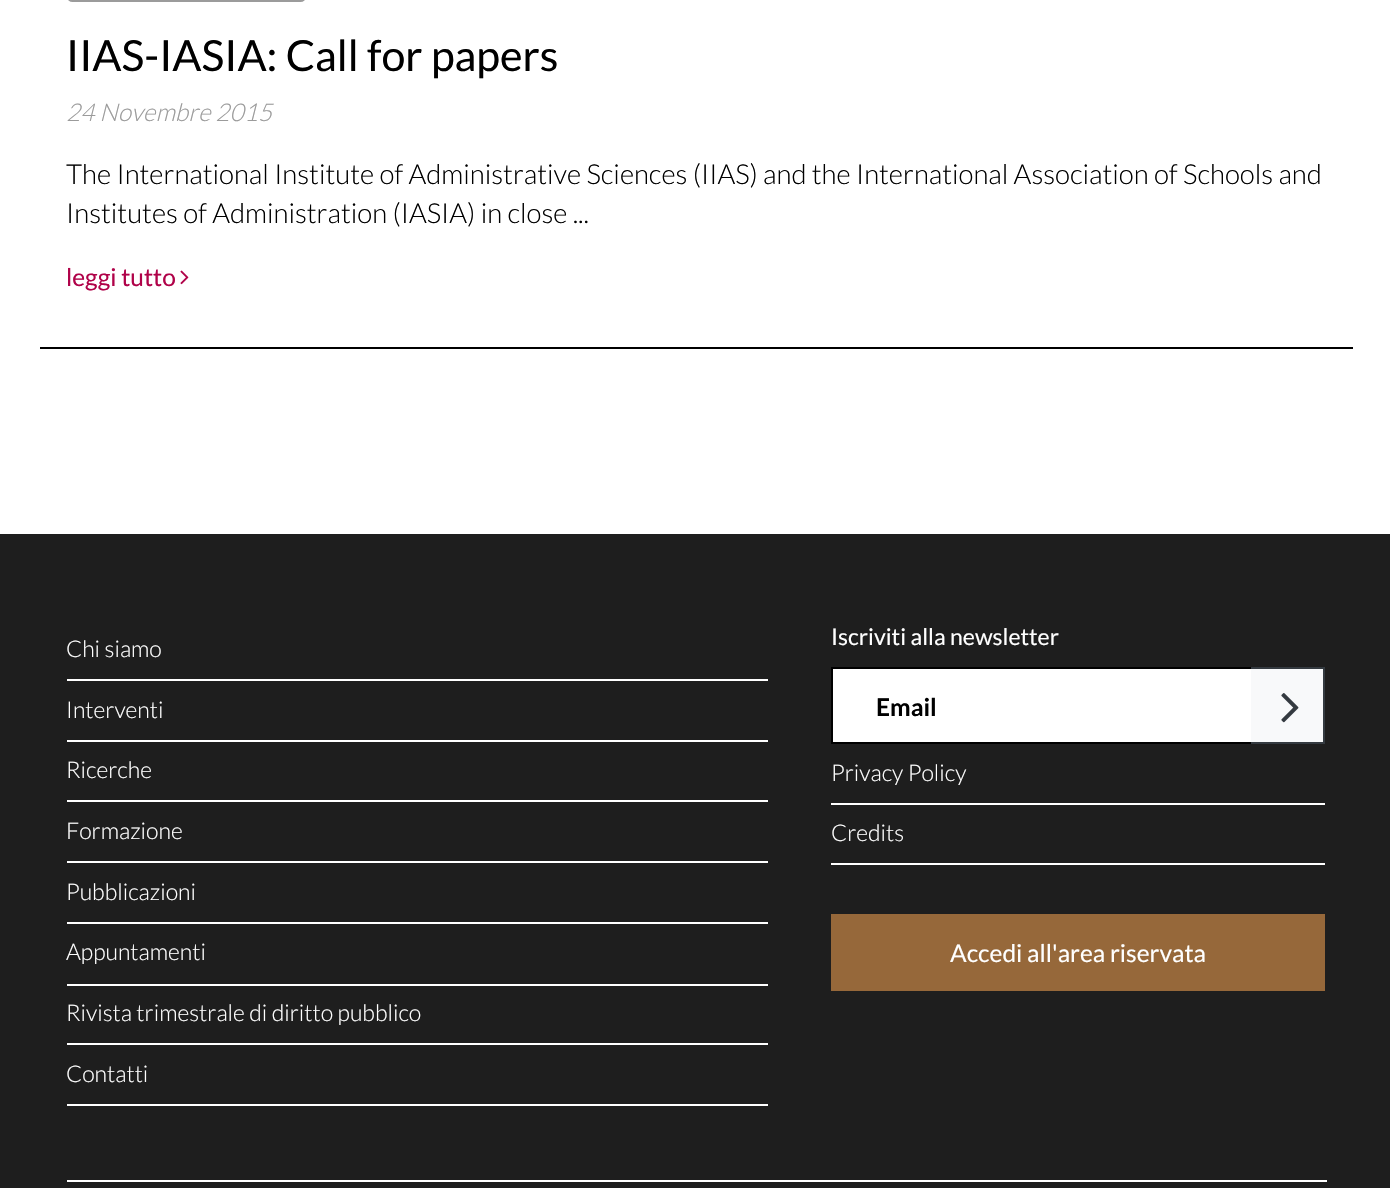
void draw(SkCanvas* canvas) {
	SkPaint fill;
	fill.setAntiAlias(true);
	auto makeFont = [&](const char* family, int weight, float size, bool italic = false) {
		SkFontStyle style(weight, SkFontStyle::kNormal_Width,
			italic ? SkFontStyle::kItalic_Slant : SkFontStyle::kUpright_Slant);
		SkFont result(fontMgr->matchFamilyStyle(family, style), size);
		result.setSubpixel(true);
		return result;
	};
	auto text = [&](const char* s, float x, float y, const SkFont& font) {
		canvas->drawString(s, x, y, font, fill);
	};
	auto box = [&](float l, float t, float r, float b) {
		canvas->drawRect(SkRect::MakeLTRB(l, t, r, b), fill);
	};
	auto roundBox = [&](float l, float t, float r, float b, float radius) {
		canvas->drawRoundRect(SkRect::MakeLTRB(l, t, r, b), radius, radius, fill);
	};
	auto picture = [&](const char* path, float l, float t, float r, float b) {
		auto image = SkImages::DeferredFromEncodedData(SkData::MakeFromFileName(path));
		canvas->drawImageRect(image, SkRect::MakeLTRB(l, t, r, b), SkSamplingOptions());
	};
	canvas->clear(0xFFFFFFFF);
	fill.setColor(0xFF000000);
	box(40, 347, 1353, 349);
	fill.setColor(0xFF9B9B9B);
	roundBox(67, -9, 306, 2, 9);
	picture("image0.png", 180, 270, 189, 285);
	fill.setColor(0xFF1E1E1E);
	box(0, 534, 1390, 1188);
	fill.setColor(0xFFFFFFFF);
	box(67, 679, 768, 681);
	box(67, 740, 768, 742);
	box(67, 800, 768, 802);
	box(67, 861, 768, 863);
	box(67, 922, 768, 924);
	box(67, 984, 768, 986);
	box(67, 1043, 768, 1045);
	box(67, 1104, 768, 1106);
	canvas->drawRect(SkRect::MakeLTRB(832, 668, 1252, 743), fill);
	fill.setStyle(SkPaint::kStroke_Style);
	fill.setStrokeWidth(2);
	fill.setColor(0xFF000000);
	canvas->drawRect(SkRect::MakeLTRB(832, 668, 1252, 743), fill);
	fill.setStyle(SkPaint::kFill_Style);
	fill.setColor(0xFFF8F9FA);
	box(1251, 669, 1323, 742);
	fill.setColor(0xFF343A40);
	box(1251, 667, 1325, 669);
	box(1323, 667, 1325, 744);
	box(1251, 742, 1325, 744);
	picture("image1.png", 1281, 693, 1299, 723);
	fill.setColor(0xFFFFFFFF);
	box(831, 803, 1325, 805);
	box(831, 863, 1325, 865);
	fill.setColor(0xFF96683A);
	box(831, 914, 1325, 991);
	fill.setColor(0xFFFFFFFF);
	box(67, 1180, 1327, 1182);
	auto font1 = makeFont("Lato", 400, 42.9f);
	fill.setColor(0xFF000000);
	text("IIAS-IASIA: Call for papers", 66, 71, font1);
	auto font2 = makeFont("Lato", 300, 24.5f, true);
	fill.setColor(0xFF9B9B9B);
	text("24 Novembre 2015", 66, 121, font2);
	auto font3 = makeFont("Lato", 300, 27.55f);
	fill.setColor(0xFF000000);
	text("The International Institute of Administrative Sciences (IIAS) and the International Association of Schools and", 66, 184, font3);
	text("Institutes of Administration (IASIA) in close ...", 66, 223, font3);
	auto font4 = makeFont("Lato", 400, 24.5f);
	fill.setColor(0xFFB00249);
	text("leggi tutto", 66, 286, font4);
	auto font5 = makeFont("Lato", 300, 23);
	fill.setColor(0xFFFFFFFF);
	text("Chi siamo", 66, 657, font5);
	text("Interventi", 66, 718, font5);
	text("Ricerche", 66, 778, font5);
	text("Formazione", 66, 839, font5);
	text("Pubblicazioni", 66, 900, font5);
	text("Appuntamenti", 66, 960, font5);
	text("Rivista trimestrale di diritto pubblico", 66, 1021, font5);
	text("Contatti", 66, 1082, font5);
	auto font6 = makeFont("Lato", 400, 23);
	text("Iscriviti alla newsletter", 831, 645, font6);
	auto font7 = makeFont("Lato", 700, 24.5f);
	fill.setColor(0xFF000000);
	text("Email", 876, 716, font7);
	fill.setColor(0xFFFFFFFF);
	text("Privacy Policy", 831, 781, font5);
	text("Credits", 831, 841, font5);
	text("Accedi all'area riservata", 950, 962, font4);
}
